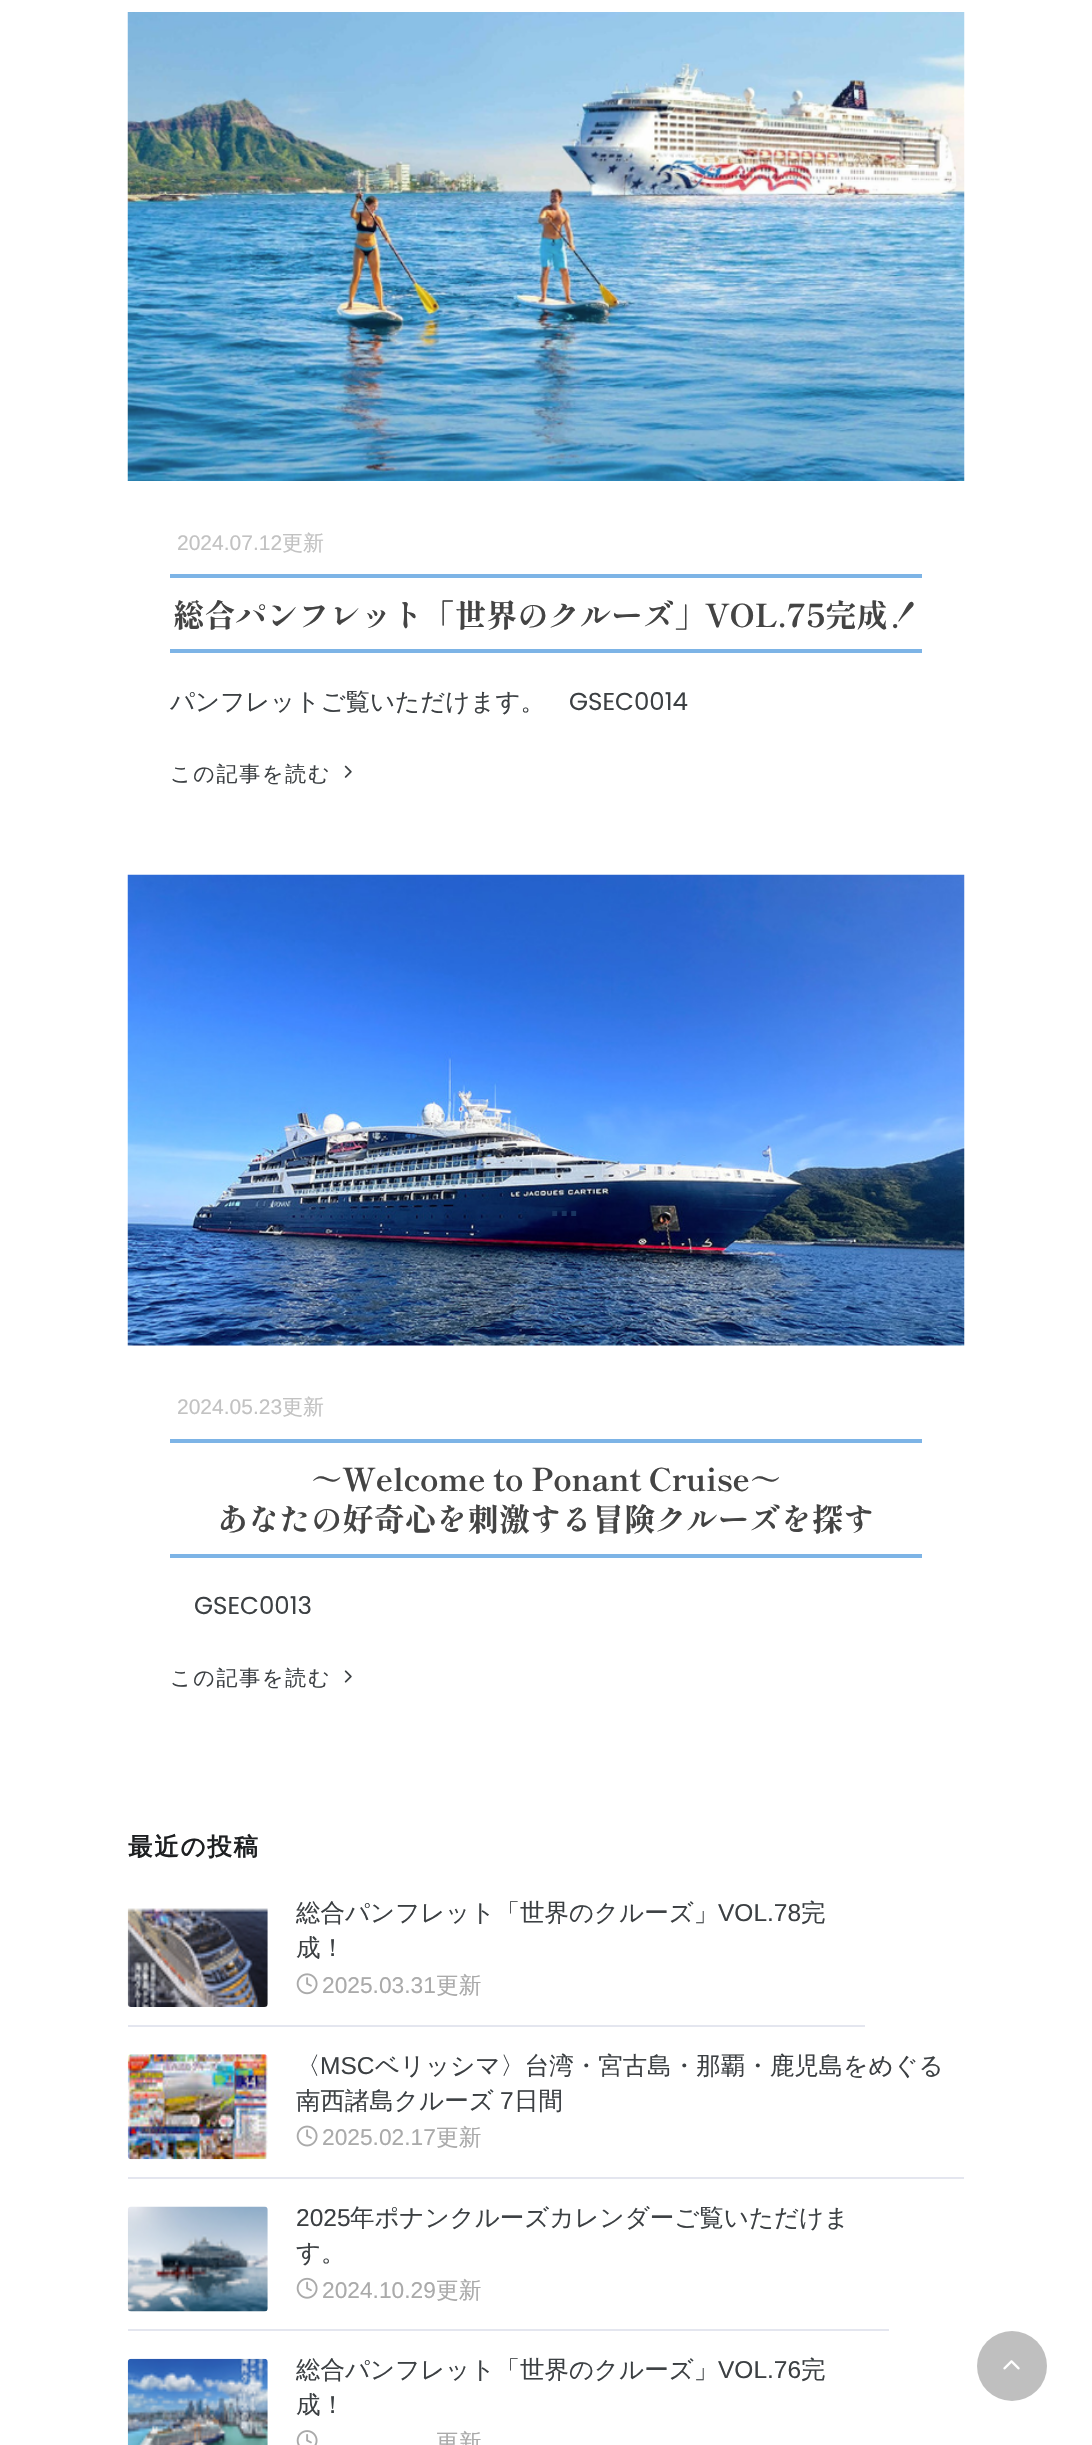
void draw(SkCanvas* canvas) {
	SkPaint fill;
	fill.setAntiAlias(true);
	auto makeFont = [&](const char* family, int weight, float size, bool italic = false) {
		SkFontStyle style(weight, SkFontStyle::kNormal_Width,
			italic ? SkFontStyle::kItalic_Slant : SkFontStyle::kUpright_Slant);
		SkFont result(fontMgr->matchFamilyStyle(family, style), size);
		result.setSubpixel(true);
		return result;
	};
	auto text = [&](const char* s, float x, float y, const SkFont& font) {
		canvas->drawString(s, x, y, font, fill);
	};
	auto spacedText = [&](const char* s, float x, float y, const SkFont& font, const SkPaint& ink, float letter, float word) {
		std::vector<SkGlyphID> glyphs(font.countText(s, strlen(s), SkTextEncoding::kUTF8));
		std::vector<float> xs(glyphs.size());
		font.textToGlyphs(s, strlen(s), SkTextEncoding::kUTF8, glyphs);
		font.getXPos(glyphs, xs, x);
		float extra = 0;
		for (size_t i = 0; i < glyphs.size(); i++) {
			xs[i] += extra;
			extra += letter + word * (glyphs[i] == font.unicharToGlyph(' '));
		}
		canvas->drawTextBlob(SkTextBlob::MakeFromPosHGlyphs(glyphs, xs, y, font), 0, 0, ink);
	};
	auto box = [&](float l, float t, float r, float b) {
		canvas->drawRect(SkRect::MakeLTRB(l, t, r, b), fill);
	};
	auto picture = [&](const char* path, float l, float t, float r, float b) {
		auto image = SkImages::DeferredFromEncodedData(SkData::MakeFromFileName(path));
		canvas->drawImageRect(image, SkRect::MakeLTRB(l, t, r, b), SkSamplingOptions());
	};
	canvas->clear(0xFFFFFFFF);
	picture("image0.png", 127, 12, 965, 481);
	fill.setColor(0xFF7DB4E6);
	box(170, 574, 922, 578);
	box(170, 649, 922, 653);
	picture("image1.png", 344, 765, 352, 778);
	picture("image2.png", 127, 874, 965, 1346);
	box(170, 1439, 922, 1443);
	box(170, 1554, 922, 1558);
	picture("image3.png", 344, 1670, 352, 1683);
	fill.setColor(0xFFE4E6EF);
	box(128, 2025, 865, 2027);
	picture("image4.png", 127, 1908, 268, 2007);
	picture("image5.png", 296, 1973, 318, 1995);
	box(128, 2177, 964, 2179);
	picture("image6.png", 127, 2054, 268, 2160);
	picture("image7.png", 296, 2125, 318, 2147);
	box(128, 2329, 889, 2331);
	picture("image8.png", 127, 2206, 268, 2312);
	picture("image9.png", 296, 2277, 318, 2299);
	picture("image10.png", 127, 2358, 268, 2445);
	picture("image11.png", 296, 2430, 318, 2445);
	fill.setColor(0xFFBFBFBF);
	canvas->drawCircle(1012, 2366, 35, fill);
	picture("image12.png", 1003, 2360, 1020, 2370);
	auto font1 = makeFont("Liberation Sans", 400, 21);
	fill.setColor(0xFFC2C2C2);
	text("2024.07.12", 177, 550, font1);
	auto font2 = makeFont("WenQuanYi Zen Hei", 500, 21);
	text("更新", 282, 550, font2);
	auto font3 = makeFont("Shippori Mincho B1", 700, 31.5f);
	fill.setColor(0xFF444444);
	spacedText("総合パンフレット「世界のクルーズ」VOL.75完成！", 173, 627, font3, fill, -0.2f, 0);
	auto font4 = makeFont("WenQuanYi Zen Hei", 500, 24.5f);
	fill.setColor(0xFF3C4043);
	text("パンフレットご覧いただけます。", 170, 710, font4);
	auto font5 = makeFont("Poppins", 400, 24.5f);
	text("GSEC0014", 569, 710, font5);
	spacedText("この記事を読む", 170, 781, font2, fill, 1.75f, 0);
	fill.setColor(0xFFC2C2C2);
	text("2024.05.23", 177, 1414, font1);
	text("更新", 282, 1414, font2);
	fill.setColor(0xFF444444);
	spacedText("～Welcome to Ponant Cruise～", 311, 1491, font3, fill, -0.2f, 0);
	spacedText("あなたの好奇心を刺激する冒険クルーズを探す", 217, 1531, font3, fill, -0.2f, 0);
	fill.setColor(0xFF3C4043);
	text("GSEC0013", 194, 1614, font5);
	spacedText("この記事を読む", 170, 1685, font2, fill, 1.75f, 0);
	auto font6 = makeFont("WenQuanYi Zen Hei", 700, 24.5f);
	fill.setColor(0xFF1E2022);
	spacedText("最近の投稿", 128, 1855, font6, fill, 1.75f, 0);
	fill.setColor(0xFF3C4043);
	text("総合パンフレット「世界のクルーズ」", 296, 1921, font4);
	auto font7 = makeFont("Liberation Sans", 400, 24.5f);
	text("VOL.78", 718, 1921, font7);
	text("完", 801, 1921, font4);
	text("成！", 296, 1956, font4);
	auto font8 = makeFont("Liberation Sans", 400, 22.75f);
	fill.setColor(0xFFAAAAAA);
	text("2025.03.31", 322, 1993, font8);
	auto font9 = makeFont("WenQuanYi Zen Hei", 500, 22.75f);
	text("更新", 436, 1993, font9);
	fill.setColor(0xFF3C4043);
	text("〈", 296, 2074, font4);
	text("MSC", 320, 2074, font7);
	text("ベリッシマ〉台湾・宮古島・那覇・鹿児島をめぐる", 375, 2074, font4);
	text("南西諸島クルーズ", 296, 2109, font4);
	text("7", 500, 2109, font7);
	text("日間", 514, 2109, font4);
	fill.setColor(0xFFAAAAAA);
	text("2025.02.17", 322, 2145, font8);
	text("更新", 436, 2145, font9);
	fill.setColor(0xFF3C4043);
	text("2025", 296, 2226, font7);
	text("年ポナンクルーズカレンダーご覧いただけま", 350, 2226, font4);
	text("す。", 296, 2261, font4);
	fill.setColor(0xFFAAAAAA);
	text("2024.10.29", 322, 2298, font8);
	text("更新", 436, 2298, font9);
	fill.setColor(0xFF3C4043);
	text("総合パンフレット「世界のクルーズ」", 296, 2378, font4);
	text("VOL.76", 718, 2378, font7);
	text("完", 801, 2378, font4);
	text("成！", 296, 2413, font4);
	fill.setColor(0xFFAAAAAA);
	text("更新", 436, 2450, font9);
	auto font10 = makeFont("Liberation Sans", 700, 34);
	fill.setColor(0xFF193460);
	text("...", 550, 1216, font10);
}
